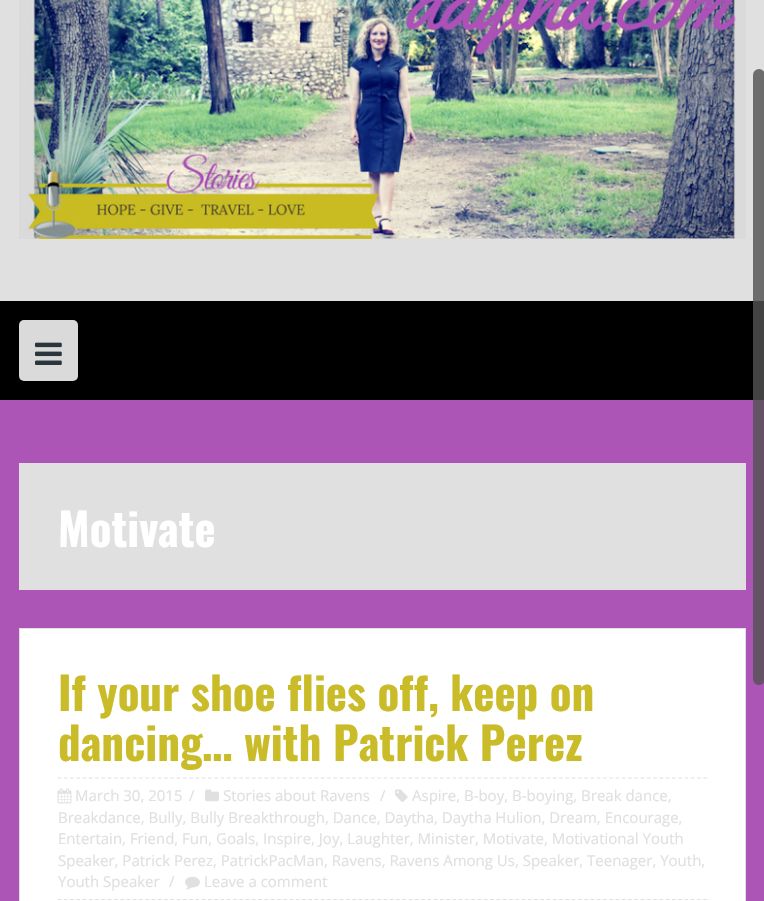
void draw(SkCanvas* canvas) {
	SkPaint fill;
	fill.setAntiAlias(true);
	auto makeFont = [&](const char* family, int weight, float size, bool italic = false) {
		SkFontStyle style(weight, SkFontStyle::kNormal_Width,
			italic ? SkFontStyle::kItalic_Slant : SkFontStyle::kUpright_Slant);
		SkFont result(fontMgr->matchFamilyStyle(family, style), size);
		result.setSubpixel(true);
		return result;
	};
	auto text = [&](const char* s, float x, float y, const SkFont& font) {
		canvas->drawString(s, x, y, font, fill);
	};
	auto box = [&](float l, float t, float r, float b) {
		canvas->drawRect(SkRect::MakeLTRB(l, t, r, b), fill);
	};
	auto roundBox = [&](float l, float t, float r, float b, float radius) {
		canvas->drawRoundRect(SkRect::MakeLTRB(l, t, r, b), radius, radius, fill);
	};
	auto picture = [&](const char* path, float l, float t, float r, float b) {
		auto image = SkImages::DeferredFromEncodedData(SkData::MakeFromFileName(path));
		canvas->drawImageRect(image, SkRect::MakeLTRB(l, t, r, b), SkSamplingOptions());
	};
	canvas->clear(0xFFAD54B7);
	fill.setColor(0xFFE0E0E0);
	box(0, 0, 764, 301);
	picture("image0.png", 19, 0, 746, 239);
	fill.setColor(0xFF000000);
	box(0, 301, 764, 400);
	fill.setColor(0xFFDADADA);
	roundBox(19, 320, 78, 381, 5);
	picture("image1.png", 35, 342, 62, 365);
	fill.setColor(0xFFE0E0E0);
	box(19, 463, 746, 590);
	fill.setColor(0xFFFFFFFF);
	canvas->drawRect(SkRect::MakeLTRB(19.5f, 628.5f, 745.5f, 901.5f), fill);
	fill.setStyle(SkPaint::kStroke_Style);
	fill.setStrokeWidth(1);
	fill.setColor(0xFFE0E0E0);
	canvas->drawRect(SkRect::MakeLTRB(19.5f, 628.5f, 745.5f, 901.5f), fill);
	fill.setStrokeWidth(1.2f);
	fill.setPathEffect(SkDashPathEffect::Make({{3.75f, 2.52f}}, 0));
	canvas->drawPath(SkPathBuilder().moveTo(57.5f, 778).lineTo(707.5f, 778).detach(), fill);
	fill.setPathEffect(nullptr);
	fill.setPathEffect(SkDashPathEffect::Make({{3.75f, 2.52f}}, 0));
	canvas->drawPath(SkPathBuilder().moveTo(57.5f, 899.5f).lineTo(707.5f, 899.5f).detach(), fill);
	fill.setPathEffect(nullptr);
	picture("image2.png", 395, 789, 408, 802);
	picture("image3.png", 57, 788, 72, 804);
	picture("image4.png", 205, 789, 219, 802);
	picture("image5.png", 185, 876, 200, 890);
	fill.setStyle(SkPaint::kFill_Style);
	fill.setColor(0xD1525252);
	roundBox(753, 69, 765, 685, 6);
	auto font1 = makeFont("Oswald", 700, 45);
	fill.setColor(0xFFFFFFFF);
	text("Motivate", 58, 547, font1);
	fill.setColor(0xFFC9BC28);
	text("If your shoe flies off, keep on", 58, 711, font1);
	text("dancing… with Patrick Perez", 58, 761, font1);
	auto font2 = makeFont("Open Sans", 400, 15);
	fill.setColor(0xFFE0E0E0);
	text("Aspire, B-boy, B-boying, Break dance,", 412, 801, font2);
	text("Breakdance, Bully, Bully Breakthrough, Dance, Daytha, Daytha Hulion, Dream, Encourage,", 58, 823, font2);
	text("Entertain, Friend, Fun, Goals, Inspire, Joy, Laughter, Minister, Motivate, Motivational Youth", 58, 844, font2);
	text("Speaker, Patrick Perez, PatrickPacMan, Ravens, Ravens Among Us, Speaker, Teenager, Youth,", 58, 866, font2);
	text("Youth Speaker", 58, 887, font2);
	text("/", 169, 887, font2);
	text("March 30, 2015", 75, 801, font2);
	text("/", 189, 801, font2);
	text("Stories about Ravens", 223, 801, font2);
	text("/", 380, 801, font2);
	text("Leave a comment", 204, 887, font2);
}
